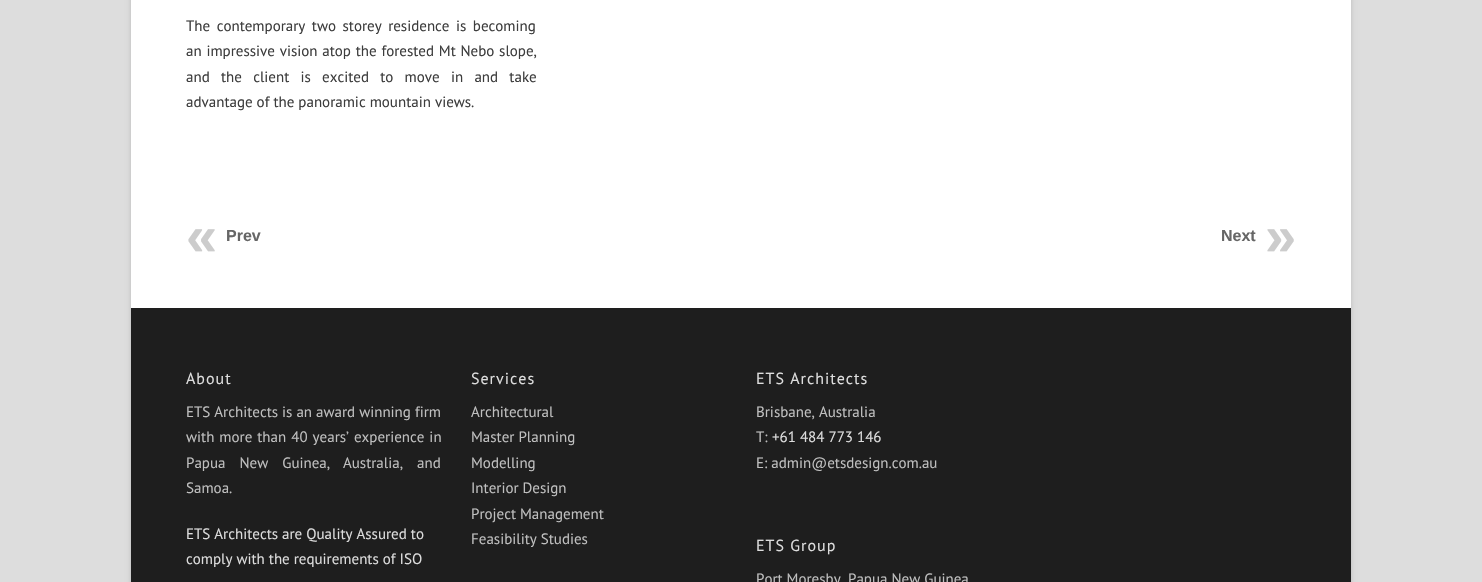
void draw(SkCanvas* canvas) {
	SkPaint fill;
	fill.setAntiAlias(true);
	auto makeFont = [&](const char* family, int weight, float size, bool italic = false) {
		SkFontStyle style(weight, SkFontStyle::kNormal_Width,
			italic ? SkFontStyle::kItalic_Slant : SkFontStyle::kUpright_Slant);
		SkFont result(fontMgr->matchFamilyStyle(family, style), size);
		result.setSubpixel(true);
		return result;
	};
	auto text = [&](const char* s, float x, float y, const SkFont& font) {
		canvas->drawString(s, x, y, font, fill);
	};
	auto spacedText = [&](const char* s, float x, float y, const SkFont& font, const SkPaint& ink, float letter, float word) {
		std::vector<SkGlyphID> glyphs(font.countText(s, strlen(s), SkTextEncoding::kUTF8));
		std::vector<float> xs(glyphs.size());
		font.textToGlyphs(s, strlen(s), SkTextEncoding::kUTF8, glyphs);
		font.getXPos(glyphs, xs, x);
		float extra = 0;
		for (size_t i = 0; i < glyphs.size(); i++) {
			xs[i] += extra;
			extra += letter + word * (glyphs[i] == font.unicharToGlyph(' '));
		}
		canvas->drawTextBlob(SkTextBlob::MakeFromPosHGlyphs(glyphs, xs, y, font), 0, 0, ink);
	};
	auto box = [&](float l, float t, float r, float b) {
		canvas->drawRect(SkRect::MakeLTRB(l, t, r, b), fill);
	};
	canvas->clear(0xFFDDDDDD);
	fill.setColor(0x26000000);
	fill.setMaskFilter(SkMaskFilter::MakeBlur(kNormal_SkBlurStyle, 2.5f));
	canvas->drawRect(SkRect::MakeLTRB(131, -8, 1351, 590), fill);
	fill.setMaskFilter(nullptr);
	fill.setColor(0xFFFFFFFF);
	box(131, 0, 1351, 308);
	fill.setColor(0xFF1E1E1E);
	box(131, 308, 1351, 582);
	auto font1 = makeFont("PT Sans", 400, 15);
	fill.setColor(0xFF3D3D3D);
	spacedText("The contemporary two storey residence is becoming", 186, 31, font1, fill, 0, 2.5f);
	spacedText("an impressive vision atop the forested Mt Nebo slope,", 186, 56, font1, fill, 0, 0.75f);
	spacedText("and the client is excited to move in and take", 186, 82, font1, fill, 0, 7.25f);
	text("advantage of the panoramic mountain views.", 186, 107, font1);
	auto font2 = makeFont("Liberation Sans", 700, 56);
	fill.setColor(0xFFCCCCCC);
	text("«", 186, 255, font2);
	auto font3 = makeFont("Liberation Sans", 700, 16);
	fill.setColor(0xFF666666);
	text("Prev", 226, 241, font3);
	text("Next", 1221, 241, font3);
	fill.setColor(0xFFCCCCCC);
	text("»", 1265, 255, font2);
	auto font4 = makeFont("PT Sans", 400, 16);
	fill.setColor(0xFFDDDDDD);
	spacedText("About", 186, 384, font4, fill, 1, 0);
	fill.setColor(0xFFBFBFBF);
	text("ETS Architects is an award winning firm", 186, 417, font1);
	spacedText("with more than 40 years’ experience in", 186, 442, font1, fill, 0, 1);
	spacedText("Papua New Guinea,", 186, 468, font1, fill, 0, 10);
	spacedText("Australia, and", 343, 468, font1, fill, 0, 10);
	text("Samoa.", 186, 493, font1);
	fill.setColor(0xFFDDDDDD);
	text("ETS Architects are Quality Assured to", 186, 539, font1);
	text("comply with the requirements of ISO", 186, 564, font1);
	spacedText("Services", 471, 384, font4, fill, 1, 0);
	fill.setColor(0xFFBFBFBF);
	text("Architectural", 471, 417, font1);
	text("Master Planning", 471, 442, font1);
	text("Modelling", 471, 468, font1);
	text("Interior Design", 471, 493, font1);
	text("Project Management", 471, 519, font1);
	text("Feasibility Studies", 471, 544, font1);
	fill.setColor(0xFFDDDDDD);
	spacedText("ETS Architects", 756, 384, font4, fill, 1, 0);
	fill.setColor(0xFFBFBFBF);
	text("Brisbane, Australia", 756, 417, font1);
	text("T:", 756, 442, font1);
	fill.setColor(0xFFDDDDDD);
	text("+61 484 773 146", 772, 442, font1);
	fill.setColor(0xFFBFBFBF);
	text("E: admin@etsdesign.com.au", 756, 468, font1);
	fill.setColor(0xFFDDDDDD);
	spacedText("ETS Group", 756, 551, font4, fill, 1, 0);
	fill.setColor(0xFFBFBFBF);
	text("Port Moresby, Papua New Guinea", 756, 584, font1);
}
